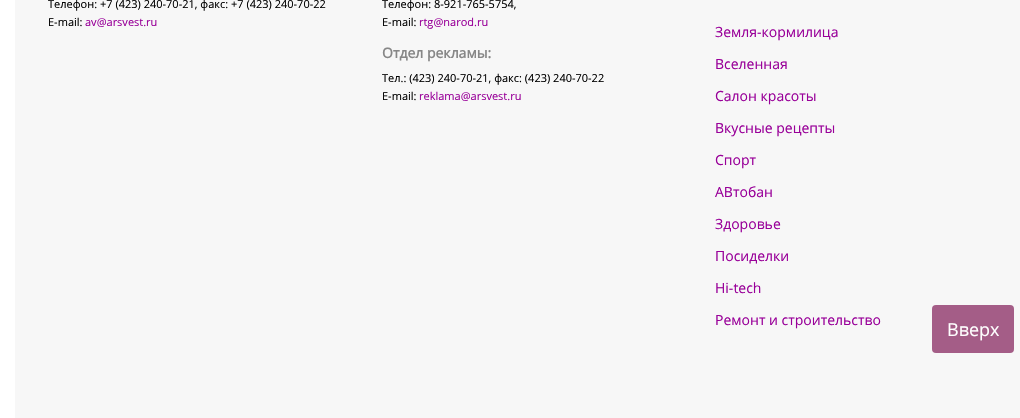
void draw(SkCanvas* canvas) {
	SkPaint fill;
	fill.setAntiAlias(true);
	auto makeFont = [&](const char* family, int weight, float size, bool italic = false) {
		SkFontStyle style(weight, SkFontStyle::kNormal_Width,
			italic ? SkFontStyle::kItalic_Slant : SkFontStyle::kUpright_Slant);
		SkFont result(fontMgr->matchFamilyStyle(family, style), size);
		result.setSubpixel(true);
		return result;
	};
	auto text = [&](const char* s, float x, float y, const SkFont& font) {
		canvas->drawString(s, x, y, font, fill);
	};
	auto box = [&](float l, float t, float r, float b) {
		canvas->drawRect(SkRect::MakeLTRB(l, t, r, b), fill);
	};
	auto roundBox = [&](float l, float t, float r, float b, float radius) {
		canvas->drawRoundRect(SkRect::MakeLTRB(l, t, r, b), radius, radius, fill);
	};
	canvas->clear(0xFFFFFFFF);
	fill.setColor(0xFFF7F7F7);
	box(15, 0, 1020, 418);
	fill.setColor(0xFFA45D87);
	roundBox(932, 305, 1014, 353, 4);
	auto font1 = makeFont("Open Sans", 400, 11);
	fill.setColor(0xFF000000);
	text("Телефон: +7 (423) 240-70-21, факс: +7 (423) 240-70-22", 48, 8, font1);
	text("E-mail:", 48, 26, font1);
	fill.setColor(0xFF990099);
	text("av@arsvest.ru", 85, 26, font1);
	fill.setColor(0xFF000000);
	text("Телефон: 8-921-765-5754,", 382, 8, font1);
	text("E-mail:", 382, 26, font1);
	fill.setColor(0xFF990099);
	text("rtg@narod.ru", 419, 26, font1);
	auto font2 = makeFont("Open Sans", 700, 14);
	fill.setColor(0xFF878787);
	text("Отдел рекламы:", 382, 58, font2);
	fill.setColor(0xFF000000);
	text("Тел.: (423) 240-70-21, факс: (423) 240-70-22", 382, 82, font1);
	text("E-mail:", 382, 100, font1);
	fill.setColor(0xFF990099);
	text("reklama@arsvest.ru", 419, 100, font1);
	auto font3 = makeFont("Open Sans", 400, 14);
	text("Земля-кормилица", 715, 37, font3);
	text("Вселенная", 715, 69, font3);
	text("Салон красоты", 715, 101, font3);
	text("Вкусные рецепты", 715, 133, font3);
	text("Спорт", 715, 165, font3);
	text("АВтобан", 715, 197, font3);
	text("Здоровье", 715, 229, font3);
	text("Посиделки", 715, 261, font3);
	text("Hi-tech", 715, 293, font3);
	text("Ремонт и строительство", 715, 325, font3);
	auto font4 = makeFont("Open Sans", 400, 18);
	fill.setColor(0xFFFFFFFF);
	text("Вверх", 947, 336, font4);
}
